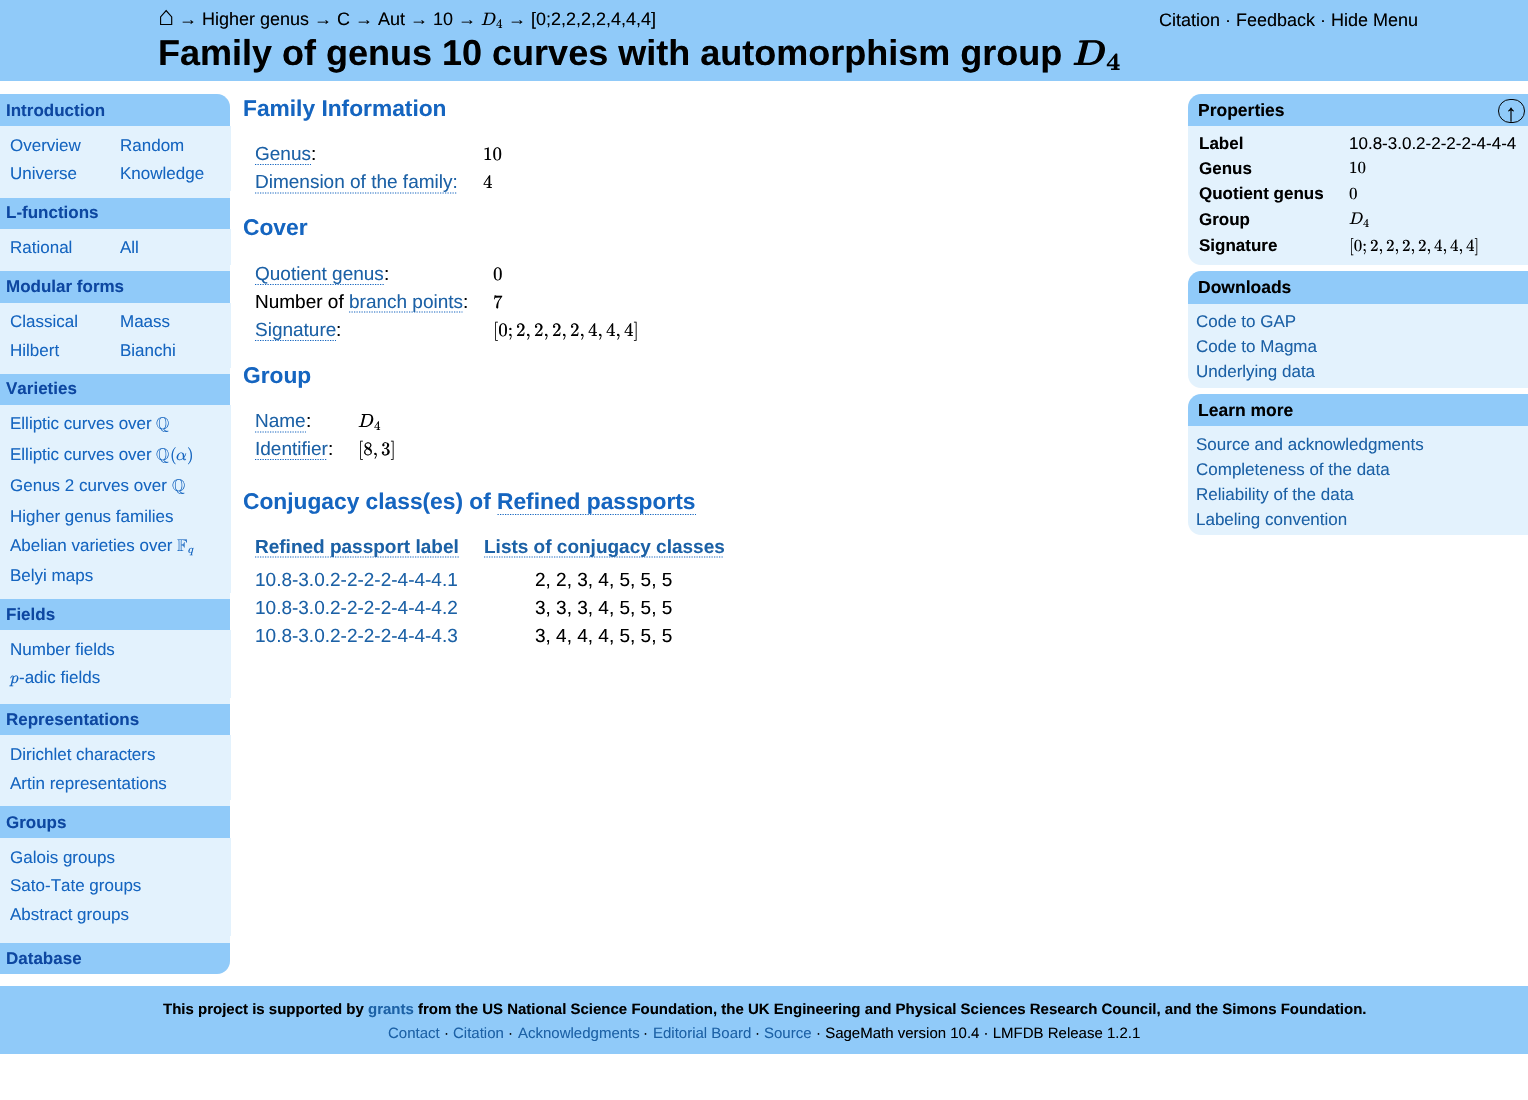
void draw(SkCanvas* canvas) {
	SkPaint fill;
	fill.setAntiAlias(true);
	auto makeFont = [&](const char* family, int weight, float size, bool italic = false) {
		SkFontStyle style(weight, SkFontStyle::kNormal_Width,
			italic ? SkFontStyle::kItalic_Slant : SkFontStyle::kUpright_Slant);
		SkFont result(fontMgr->matchFamilyStyle(family, style), size);
		result.setSubpixel(true);
		return result;
	};
	auto text = [&](const char* s, float x, float y, const SkFont& font) {
		canvas->drawString(s, x, y, font, fill);
	};
	auto box = [&](float l, float t, float r, float b) {
		canvas->drawRect(SkRect::MakeLTRB(l, t, r, b), fill);
	};
	canvas->clear(0xFFFFFFFF);
	fill.setColor(0xFF90CAF9);
	box(0, 0, 1528, 81);
	fill.setColor(0xFFE3F2FD);
	canvas->drawPath(SkPathBuilder().moveTo(0, 94).lineTo(217, 94).cubicTo(224, 94, 230, 100, 230, 107).lineTo(230, 961).cubicTo(230, 968, 224, 974, 217, 974).lineTo(0, 974).close().detach(), fill);
	fill.setColor(0xFF90CAF9);
	canvas->drawPath(SkPathBuilder().moveTo(0, 94).lineTo(217, 94).cubicTo(224, 94, 230, 100, 230, 107).lineTo(230, 126).lineTo(0, 126).close().detach(), fill);
	fill.setColor(0xFFE3F2FD);
	box(230, 126, 231, 191);
	fill.setColor(0xFF90CAF9);
	box(0, 198, 230, 229);
	fill.setColor(0xFFE3F2FD);
	box(230, 229, 231, 265);
	fill.setColor(0xFF90CAF9);
	box(0, 271, 230, 303);
	fill.setColor(0xFFE3F2FD);
	box(230, 303, 231, 368);
	fill.setColor(0xFF90CAF9);
	box(0, 374, 230, 405);
	fill.setColor(0xFFE3F2FD);
	box(230, 405, 231, 593);
	fill.setColor(0xFF90CAF9);
	box(0, 599, 230, 630);
	fill.setColor(0xFFE3F2FD);
	box(230, 630, 231, 698);
	fill.setColor(0xFF90CAF9);
	box(0, 704, 230, 735);
	fill.setColor(0xFFE3F2FD);
	box(230, 735, 231, 800);
	fill.setColor(0xFF90CAF9);
	box(0, 806, 230, 838);
	fill.setColor(0xFFE3F2FD);
	box(230, 838, 231, 936);
	fill.setColor(0xFF90CAF9);
	canvas->drawPath(SkPathBuilder().moveTo(0, 943).lineTo(230, 943).lineTo(230, 961).cubicTo(230, 968, 224, 974, 217, 974).lineTo(0, 974).close().detach(), fill);
	fill.setStyle(SkPaint::kStroke_Style);
	fill.setStrokeWidth(1.2f);
	fill.setColor(0xFF1565C0);
	fill.setPathEffect(SkDashPathEffect::Make({{1.25f, 1.25f}}, 0));
	canvas->drawPath(SkPathBuilder().moveTo(255, 164.5f).lineTo(311, 164.5f).detach(), fill);
	fill.setPathEffect(nullptr);
	fill.setPathEffect(SkDashPathEffect::Make({{1.25f, 1.25f}}, 0));
	canvas->drawPath(SkPathBuilder().moveTo(255, 193).lineTo(457.5f, 193).detach(), fill);
	fill.setPathEffect(nullptr);
	fill.setPathEffect(SkDashPathEffect::Make({{1.25f, 1.25f}}, 0));
	canvas->drawPath(SkPathBuilder().moveTo(255, 284.5f).lineTo(384, 284.5f).detach(), fill);
	fill.setPathEffect(nullptr);
	fill.setPathEffect(SkDashPathEffect::Make({{1.25f, 1.25f}}, 0));
	canvas->drawPath(SkPathBuilder().moveTo(349, 312).lineTo(462.5f, 312).detach(), fill);
	fill.setPathEffect(nullptr);
	fill.setPathEffect(SkDashPathEffect::Make({{1.25f, 1.25f}}, 0));
	canvas->drawPath(SkPathBuilder().moveTo(255, 340.5f).lineTo(336, 340.5f).detach(), fill);
	fill.setPathEffect(nullptr);
	fill.setPathEffect(SkDashPathEffect::Make({{1.25f, 1.25f}}, 0));
	canvas->drawPath(SkPathBuilder().moveTo(255, 432).lineTo(306, 432).detach(), fill);
	fill.setPathEffect(nullptr);
	fill.setPathEffect(SkDashPathEffect::Make({{1.25f, 1.25f}}, 0));
	canvas->drawPath(SkPathBuilder().moveTo(255, 459.5f).lineTo(327.5f, 459.5f).detach(), fill);
	fill.setPathEffect(nullptr);
	fill.setPathEffect(SkDashPathEffect::Make({{1.25f, 1.25f}}, 0));
	canvas->drawPath(SkPathBuilder().moveTo(497.5f, 514.5f).lineTo(696, 514.5f).detach(), fill);
	fill.setPathEffect(nullptr);
	fill.setPathEffect(SkDashPathEffect::Make({{1.25f, 1.25f}}, 0));
	canvas->drawPath(SkPathBuilder().moveTo(255, 557).lineTo(459, 557).detach(), fill);
	fill.setPathEffect(nullptr);
	fill.setPathEffect(SkDashPathEffect::Make({{1.25f, 1.25f}}, 0));
	canvas->drawPath(SkPathBuilder().moveTo(484, 557).lineTo(724, 557).detach(), fill);
	fill.setPathEffect(nullptr);
	fill.setStyle(SkPaint::kFill_Style);
	fill.setColor(0xFF90CAF9);
	canvas->drawPath(SkPathBuilder().moveTo(1201, 94).lineTo(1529, 94).lineTo(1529, 126).lineTo(1188, 126).lineTo(1188, 107).cubicTo(1188, 100, 1194, 94, 1201, 94).close().detach(), fill);
	fill.setStyle(SkPaint::kStroke_Style);
	fill.setStrokeWidth(1);
	fill.setColor(0xFF000000);
	canvas->drawRoundRect(SkRect::MakeLTRB(1498.5f, 99.5f, 1524.5f, 122.5f), 11.5f, 11.5f, fill);
	fill.setStyle(SkPaint::kFill_Style);
	fill.setColor(0xFFE3F2FD);
	canvas->drawPath(SkPathBuilder().moveTo(1188, 126).lineTo(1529, 126).lineTo(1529, 265).lineTo(1201, 265).cubicTo(1194, 265, 1188, 259, 1188, 252).close().detach(), fill);
	fill.setColor(0xFF90CAF9);
	canvas->drawPath(SkPathBuilder().moveTo(1201, 271).lineTo(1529, 271).lineTo(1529, 304).lineTo(1188, 304).lineTo(1188, 284).cubicTo(1188, 277, 1194, 271, 1201, 271).close().detach(), fill);
	fill.setColor(0xFFE3F2FD);
	canvas->drawPath(SkPathBuilder().moveTo(1188, 304).lineTo(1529, 304).lineTo(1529, 388).lineTo(1201, 388).cubicTo(1194, 388, 1188, 382, 1188, 375).close().detach(), fill);
	fill.setColor(0xFF90CAF9);
	canvas->drawPath(SkPathBuilder().moveTo(1201, 394).lineTo(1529, 394).lineTo(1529, 426).lineTo(1188, 426).lineTo(1188, 407).cubicTo(1188, 400, 1194, 394, 1201, 394).close().detach(), fill);
	fill.setColor(0xFFE3F2FD);
	canvas->drawPath(SkPathBuilder().moveTo(1188, 426).lineTo(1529, 426).lineTo(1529, 535).lineTo(1201, 535).cubicTo(1194, 535, 1188, 529, 1188, 522).close().detach(), fill);
	fill.setColor(0xFF90CAF9);
	box(0, 986, 1528, 1054);
	auto font1 = makeFont("Liberation Sans", 400, 27);
	fill.setColor(0xFF000000);
	text("⌂", 158, 25, font1);
	auto font2 = makeFont("Liberation Sans", 400, 18);
	text("→ Higher genus → C → Aut → 10 →", 179, 25, font2);
	auto font3 = makeFont("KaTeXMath", 400, 18, true);
	text("D", 481, 25, font3);
	auto font4 = makeFont("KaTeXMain", 400, 13);
	text("4", 496, 28, font4);
	text("→ [0;2,2,2,2,4,4,4]", 508, 25, font2);
	text("Citation · Feedback · Hide Menu", 1159, 26, font2);
	auto font5 = makeFont("Liberation Sans", 700, 36);
	text("Family of genus 10 curves with automorphism group", 158, 65, font5);
	auto font6 = makeFont("KaTeXMath", 700, 36, true);
	text("D", 1072, 65, font6);
	auto font7 = makeFont("KaTeXMain", 700, 25);
	text("4", 1106, 70, font7);
	auto font8 = makeFont("Liberation Sans", 700, 17);
	fill.setColor(0xFF0D47A1);
	text("Introduction", 6, 116, font8);
	auto font9 = makeFont("Liberation Sans", 400, 17);
	fill.setColor(0xFF1565C0);
	text("Overview", 10, 151, font9);
	text("Random", 120, 151, font9);
	text("Universe", 10, 179, font9);
	text("Knowledge", 120, 179, font9);
	fill.setColor(0xFF0D47A1);
	text("L-functions", 6, 218, font8);
	fill.setColor(0xFF1565C0);
	text("Rational", 10, 253, font9);
	text("All", 120, 253, font9);
	fill.setColor(0xFF0D47A1);
	text("Modular forms", 6, 292, font8);
	fill.setColor(0xFF1565C0);
	text("Classical", 10, 327, font9);
	text("Maass", 120, 327, font9);
	text("Hilbert", 10, 356, font9);
	text("Bianchi", 120, 356, font9);
	fill.setColor(0xFF0D47A1);
	text("Varieties", 6, 394, font8);
	fill.setColor(0xFF1565C0);
	text("Elliptic curves over", 10, 429, font9);
	auto font10 = makeFont("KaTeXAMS", 400, 17);
	text("Q", 156, 429, font10);
	text("Elliptic curves over", 10, 460, font9);
	text("Q", 156, 460, font10);
	auto font11 = makeFont("KaTeXMain", 400, 17);
	text("(", 170, 460, font11);
	auto font12 = makeFont("KaTeXMath", 400, 17, true);
	text("α", 176, 460, font12);
	text(")", 187, 460, font11);
	text("Genus 2 curves over", 10, 491, font9);
	text("Q", 172, 491, font10);
	text("Higher genus families", 10, 522, font9);
	text("Abelian varieties over", 10, 551, font9);
	text("F", 177, 551, font10);
	auto font13 = makeFont("KaTeXMath", 400, 12, true);
	text("q", 188, 553, font13);
	text("Belyi maps", 10, 581, font9);
	fill.setColor(0xFF0D47A1);
	text("Fields", 6, 620, font8);
	fill.setColor(0xFF1565C0);
	text("Number fields", 10, 655, font9);
	text("p", 10, 683, font12);
	text("-adic fields", 19, 683, font9);
	fill.setColor(0xFF0D47A1);
	text("Representations", 6, 725, font8);
	fill.setColor(0xFF1565C0);
	text("Dirichlet characters", 10, 760, font9);
	text("Artin representations", 10, 789, font9);
	fill.setColor(0xFF0D47A1);
	text("Groups", 6, 828, font8);
	fill.setColor(0xFF1565C0);
	text("Galois groups", 10, 863, font9);
	text("Sato-Tate groups", 10, 891, font9);
	text("Abstract groups", 10, 920, font9);
	fill.setColor(0xFF0D47A1);
	text("Database", 6, 964, font8);
	auto font14 = makeFont("Liberation Sans", 700, 22.75f);
	fill.setColor(0xFF1565C0);
	text("Family Information", 243, 116, font14);
	auto font15 = makeFont("Liberation Sans", 400, 19);
	fill.setColor(0xFF1C61A6);
	text("Genus", 255, 160, font15);
	fill.setColor(0xFF000000);
	text(":", 311, 160, font15);
	auto font16 = makeFont("KaTeXMain", 400, 19);
	text("10", 483, 160, font16);
	fill.setColor(0xFF1C61A6);
	text("Dimension of the family:", 255, 188, font15);
	fill.setColor(0xFF000000);
	text("4", 483, 188, font16);
	fill.setColor(0xFF1565C0);
	text("Cover", 243, 235, font14);
	fill.setColor(0xFF1C61A6);
	text("Quotient genus", 255, 280, font15);
	fill.setColor(0xFF000000);
	text(":", 384, 280, font15);
	text("0", 493, 280, font16);
	text("Number of", 255, 308, font15);
	fill.setColor(0xFF1C61A6);
	text("branch points", 349, 308, font15);
	fill.setColor(0xFF000000);
	text(":", 463, 308, font15);
	text("7", 493, 308, font16);
	fill.setColor(0xFF1C61A6);
	text("Signature", 255, 336, font15);
	fill.setColor(0xFF000000);
	text(":", 336, 336, font15);
	text("[0;", 493, 336, font16);
	text("2,", 516, 336, font16);
	text("2,", 534, 336, font16);
	text("2,", 552, 336, font16);
	text("2,", 570, 336, font16);
	text("4,", 588, 336, font16);
	text("4,", 606, 336, font16);
	text("4]", 624, 336, font16);
	fill.setColor(0xFF1565C0);
	text("Group", 243, 383, font14);
	fill.setColor(0xFF1C61A6);
	text("Name", 255, 427, font15);
	fill.setColor(0xFF000000);
	text(":", 306, 427, font15);
	auto font17 = makeFont("KaTeXMath", 400, 19, true);
	text("D", 358, 427, font17);
	text("4", 374, 430, font4);
	fill.setColor(0xFF1C61A6);
	text("Identifier", 255, 455, font15);
	fill.setColor(0xFF000000);
	text(":", 328, 455, font15);
	text("[8,", 358, 455, font16);
	text("3]", 381, 455, font16);
	fill.setColor(0xFF1565C0);
	text("Conjugacy class(es) of", 243, 509, font14);
	text("Refined passports", 497, 509, font14);
	auto font18 = makeFont("Liberation Sans", 700, 19);
	fill.setColor(0xFF1C61A6);
	text("Refined passport label", 255, 553, font18);
	text("Lists of conjugacy classes", 484, 553, font18);
	text("10.8-3.0.2-2-2-2-4-4-4.1", 255, 586, font15);
	fill.setColor(0xFF000000);
	text("2, 2, 3, 4, 5, 5, 5", 535, 586, font15);
	fill.setColor(0xFF1C61A6);
	text("10.8-3.0.2-2-2-2-4-4-4.2", 255, 614, font15);
	fill.setColor(0xFF000000);
	text("3, 3, 3, 4, 5, 5, 5", 535, 614, font15);
	fill.setColor(0xFF1C61A6);
	text("10.8-3.0.2-2-2-2-4-4-4.3", 255, 642, font15);
	fill.setColor(0xFF000000);
	text("3, 4, 4, 4, 5, 5, 5", 535, 642, font15);
	auto font19 = makeFont("Liberation Sans", 700, 17.5f);
	text("Properties", 1198, 116, font19);
	auto font20 = makeFont("Liberation Sans", 700, 24);
	text("↑", 1505, 121, font20);
	text("Label", 1199, 149, font8);
	text("10.8-3.0.2-2-2-2-4-4-4", 1349, 149, font9);
	text("Genus", 1199, 174, font8);
	text("10", 1349, 173, font11);
	text("Quotient genus", 1199, 199, font8);
	text("0", 1349, 199, font11);
	text("Group", 1199, 225, font8);
	text("D", 1349, 224, font12);
	auto font21 = makeFont("KaTeXMain", 400, 12);
	text("4", 1363, 227, font21);
	text("Signature", 1199, 251, font8);
	text("[0;", 1349, 251, font11);
	text("2,", 1370, 251, font11);
	text("2,", 1386, 251, font11);
	text("2,", 1402, 251, font11);
	text("2,", 1418, 251, font11);
	text("4,", 1434, 251, font11);
	text("4,", 1450, 251, font11);
	text("4]", 1466, 251, font11);
	text("Downloads", 1198, 293, font19);
	fill.setColor(0xFF1C61A6);
	text("Code to GAP", 1196, 327, font9);
	text("Code to Magma", 1196, 352, font9);
	text("Underlying data", 1196, 377, font9);
	fill.setColor(0xFF000000);
	text("Learn more", 1198, 416, font19);
	fill.setColor(0xFF1C61A6);
	text("Source and acknowledgments", 1196, 450, font9);
	text("Completeness of the data", 1196, 475, font9);
	text("Reliability of the data", 1196, 500, font9);
	text("Labeling convention", 1196, 525, font9);
	auto font22 = makeFont("Liberation Sans", 700, 15);
	fill.setColor(0xFF000000);
	text("This project is supported by", 163, 1014, font22);
	fill.setColor(0xFF1C61A6);
	text("grants", 368, 1014, font22);
	fill.setColor(0xFF000000);
	text("from the US National Science Foundation, the UK Engineering and Physical Sciences Research Council, and the Simons Foundation.", 418, 1014, font22);
	auto font23 = makeFont("Liberation Sans", 400, 15);
	fill.setColor(0xFF1C61A6);
	text("Contact", 388, 1038, font23);
	fill.setColor(0xFF000000);
	text("·", 444, 1038, font23);
	fill.setColor(0xFF1C61A6);
	text("Citation", 453, 1038, font23);
	fill.setColor(0xFF000000);
	text("·", 508, 1038, font23);
	fill.setColor(0xFF1C61A6);
	text("Acknowledgments", 518, 1038, font23);
	fill.setColor(0xFF000000);
	text("·", 643, 1038, font23);
	fill.setColor(0xFF1C61A6);
	text("Editorial Board", 653, 1038, font23);
	fill.setColor(0xFF000000);
	text("·", 755, 1038, font23);
	fill.setColor(0xFF1C61A6);
	text("Source", 764, 1038, font23);
	fill.setColor(0xFF000000);
	text("· SageMath version 10.4 · LMFDB Release 1.2.1", 816, 1038, font23);
}
